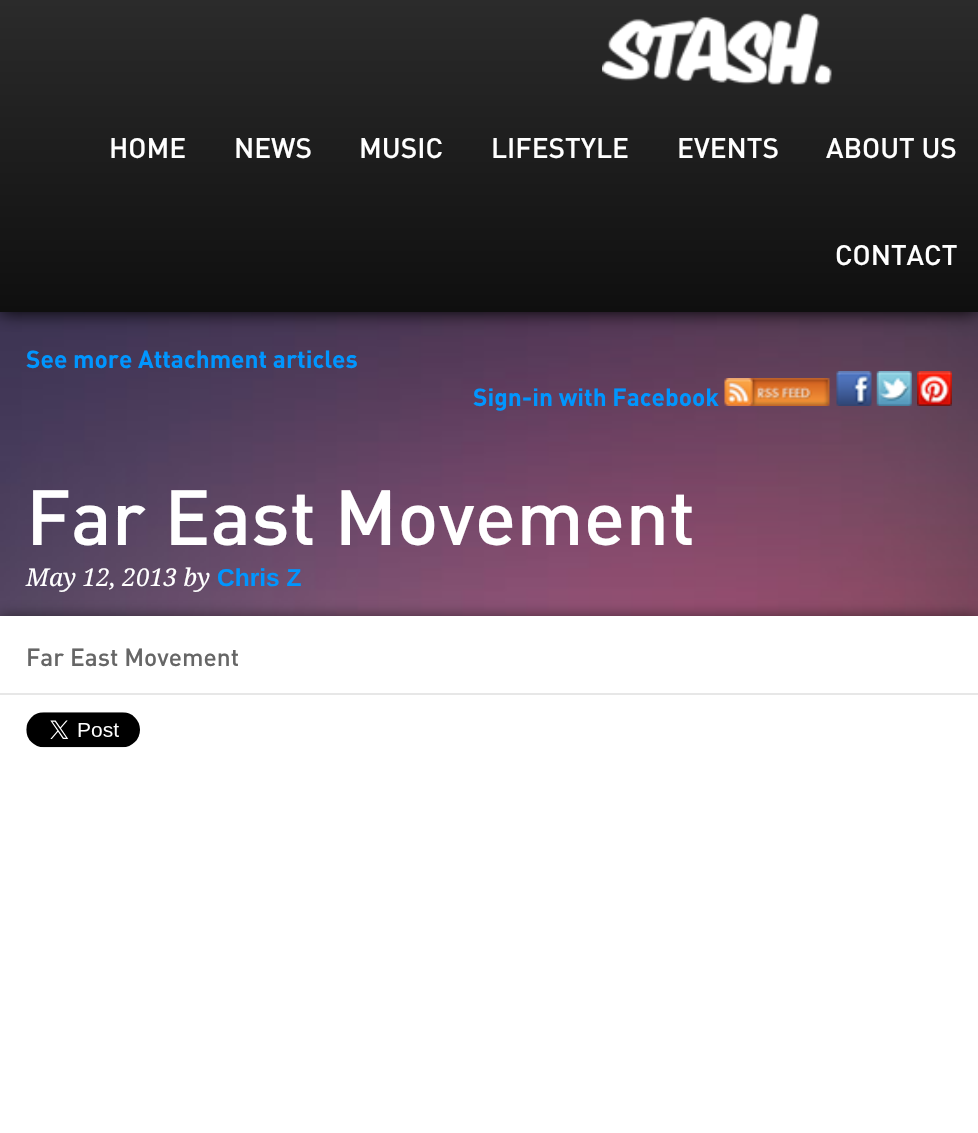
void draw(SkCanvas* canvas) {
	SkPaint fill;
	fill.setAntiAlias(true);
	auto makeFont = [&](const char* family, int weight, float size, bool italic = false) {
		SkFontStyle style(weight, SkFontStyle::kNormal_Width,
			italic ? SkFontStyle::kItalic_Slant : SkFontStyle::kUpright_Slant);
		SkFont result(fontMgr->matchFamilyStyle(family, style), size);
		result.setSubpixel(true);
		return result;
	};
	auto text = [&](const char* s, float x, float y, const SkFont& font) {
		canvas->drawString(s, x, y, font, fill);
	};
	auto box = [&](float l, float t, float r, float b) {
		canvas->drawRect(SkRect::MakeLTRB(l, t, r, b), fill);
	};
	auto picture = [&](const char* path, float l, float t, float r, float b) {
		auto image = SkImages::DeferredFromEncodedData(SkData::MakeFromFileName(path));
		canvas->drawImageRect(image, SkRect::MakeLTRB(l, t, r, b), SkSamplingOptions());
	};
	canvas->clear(0xFFFFFFFF);
	picture("image0.png", 0, 312, 978, 616);
	fill.setColor(0xFF000000);
	fill.setMaskFilter(SkMaskFilter::MakeBlur(kNormal_SkBlurStyle, 9));
	canvas->drawRect(SkRect::MakeLTRB(0, 0, 978, 312), fill);
	fill.setMaskFilter(nullptr);
	{
		const SkColor colors[] = {0xFF2B2B2B, 0xFF0F0F0F};
		const float stops[] = {0, 1};
		const SkPoint ends[] = {{489, 0}, {489, 312}};
		fill.setShader(SkGradientShader::MakeLinear(ends, colors, stops, 2, SkTileMode::kClamp));
		fill.setAlpha(255);
	}
	box(0, 0, 978, 312);
	picture("image1.png", 602, 13, 832, 85);
	picture("image2.png", 724, 378, 830, 406);
	picture("image3.png", 836, 371, 872, 406);
	picture("image4.png", 876, 371, 912, 406);
	picture("image5.png", 917, 371, 952, 406);
	fill.setShader(nullptr);
	fill.setColor(0x80000000);
	fill.setMaskFilter(SkMaskFilter::MakeBlur(kNormal_SkBlurStyle, 7));
	canvas->drawRect(SkRect::MakeLTRB(0, 616, 978, 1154), fill);
	fill.setMaskFilter(nullptr);
	fill.setColor(0xFFFFFFFF);
	box(0, 616, 978, 1133);
	fill.setColor(0xFFE7E7E7);
	box(0, 693, 978, 695);
	picture("image6.png", 26, 712, 140, 748);
	auto font1 = makeFont("DIN", 500, 28);
	fill.setColor(0xFFFFFFFF);
	text("HOME", 109, 158, font1);
	text("NEWS", 234, 158, font1);
	text("MUSIC", 359, 158, font1);
	text("LIFESTYLE", 491, 158, font1);
	text("EVENTS", 677, 158, font1);
	text("ABOUT US", 826, 158, font1);
	text("CONTACT", 835, 265, font1);
	auto font2 = makeFont("DIN", 700, 24.5f);
	fill.setColor(0xFF0096FF);
	text("See more Attachment articles", 26, 368, font2);
	text("Sign-in with Facebook", 473, 406, font2);
	auto font3 = makeFont("DIN", 500, 77);
	fill.setColor(0xFFFFFFFF);
	text("Far East Movement", 26, 545, font3);
	auto font4 = makeFont("Droid Serif", 400, 24.5f, true);
	text("May 12, 2013 by", 26, 586, font4);
	auto font5 = makeFont("Liberation Sans", 700, 24.5f);
	fill.setColor(0xFF0096FF);
	text("Chris Z", 217, 586, font5);
	auto font6 = makeFont("DIN", 500, 24.5f);
	fill.setColor(0xFF666666);
	text("Far East Movement", 26, 666, font6);
}
